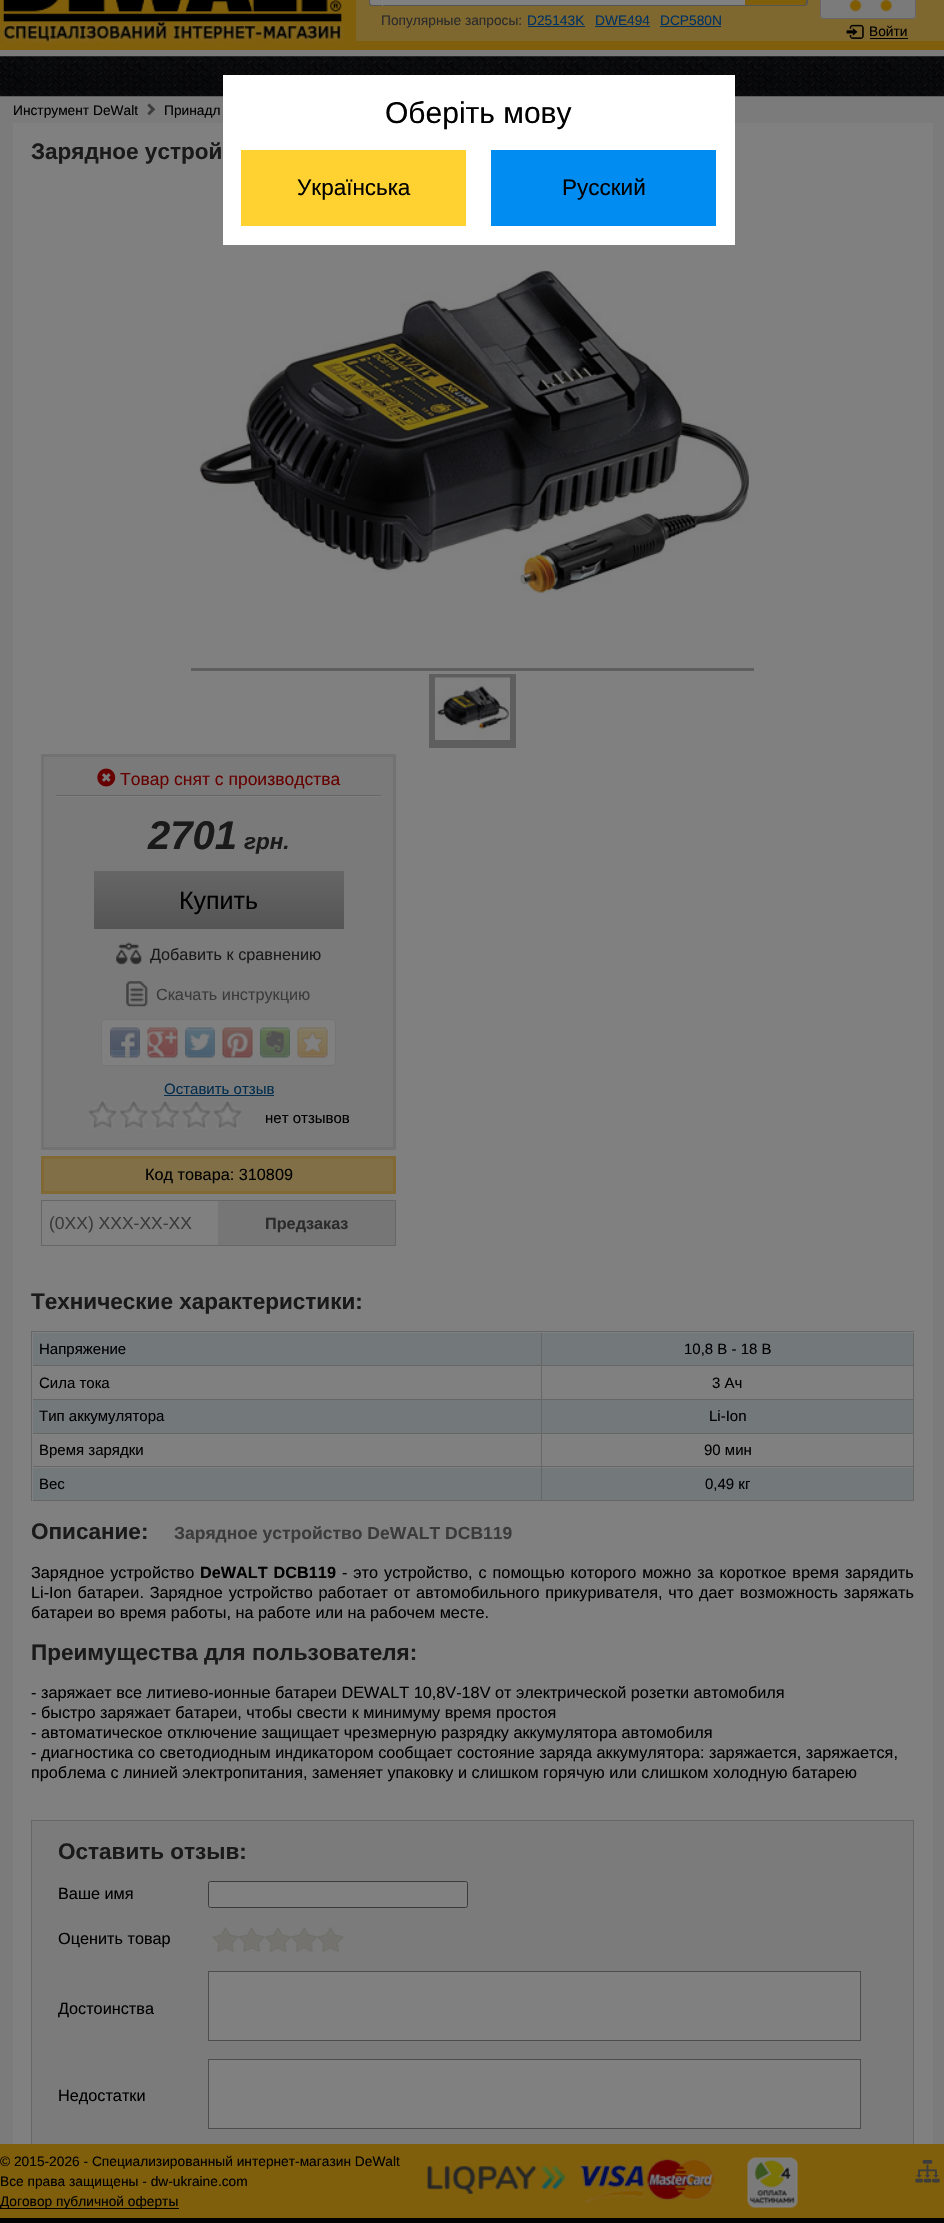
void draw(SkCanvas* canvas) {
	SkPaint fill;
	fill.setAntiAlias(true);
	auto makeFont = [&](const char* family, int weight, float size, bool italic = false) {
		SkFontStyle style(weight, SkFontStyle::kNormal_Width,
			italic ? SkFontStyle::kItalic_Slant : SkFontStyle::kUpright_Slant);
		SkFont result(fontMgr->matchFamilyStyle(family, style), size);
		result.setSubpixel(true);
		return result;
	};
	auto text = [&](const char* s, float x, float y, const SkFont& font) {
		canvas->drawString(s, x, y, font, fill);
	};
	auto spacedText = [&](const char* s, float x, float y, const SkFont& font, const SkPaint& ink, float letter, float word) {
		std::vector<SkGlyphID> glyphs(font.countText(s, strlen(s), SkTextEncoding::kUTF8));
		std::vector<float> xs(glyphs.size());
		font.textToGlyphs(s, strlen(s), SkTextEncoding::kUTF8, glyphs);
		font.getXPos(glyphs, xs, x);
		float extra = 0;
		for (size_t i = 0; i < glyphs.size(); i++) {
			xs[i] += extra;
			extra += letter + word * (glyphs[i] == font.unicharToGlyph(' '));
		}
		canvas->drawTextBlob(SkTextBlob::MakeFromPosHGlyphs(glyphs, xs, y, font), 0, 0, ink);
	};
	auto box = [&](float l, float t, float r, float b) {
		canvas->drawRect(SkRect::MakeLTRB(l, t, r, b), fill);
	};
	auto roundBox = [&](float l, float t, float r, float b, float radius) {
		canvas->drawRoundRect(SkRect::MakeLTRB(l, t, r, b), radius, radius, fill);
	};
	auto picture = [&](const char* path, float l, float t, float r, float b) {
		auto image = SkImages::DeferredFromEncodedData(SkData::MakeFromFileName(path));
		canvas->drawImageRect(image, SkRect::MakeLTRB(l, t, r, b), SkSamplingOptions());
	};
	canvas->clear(0xFF7F5E0C);
	picture("image0.png", 0, 0, 344, 44);
	fill.setColor(0xFF7F682F);
	box(356, 0, 944, 41);
	fill.setColor(0xFF808080);
	canvas->drawPath(SkPathBuilder().moveTo(373, -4).lineTo(383, -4).lineTo(383, 6).lineTo(373, 6).cubicTo(371, 6, 369, 4, 369, 2).lineTo(369, 0).cubicTo(369, -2, 371, -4, 373, -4).close().detach(), fill);
	fill.setColor(0xFF555555);
	canvas->drawPath(SkPathBuilder(SkPathFillType::kEvenOdd).moveTo(372, -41).lineTo(382, -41).lineTo(382, 6).lineTo(372, 6).cubicTo(370, 6, 369, 5, 369, 2).lineTo(369, -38).cubicTo(369, -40, 370, -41, 372, -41).close().moveTo(372, -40).lineTo(382, -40).lineTo(382, 5).lineTo(372, 5).cubicTo(371, 5, 370, 4, 370, 2).lineTo(370, -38).cubicTo(370, -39, 371, -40, 372, -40).close().detach(), fill);
	fill.setColor(0xFF808080);
	box(383, 0, 745, 5);
	fill.setColor(0xFF555555);
	box(383, 5, 745, 6);
	fill.setColor(0xFF7F5E0C);
	canvas->drawPath(SkPathBuilder().moveTo(745, -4).lineTo(804, -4).cubicTo(806, -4, 808, -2, 808, 0).lineTo(808, 2).cubicTo(808, 4, 806, 6, 804, 6).lineTo(745, 6).close().detach(), fill);
	fill.setColor(0xFF555555);
	canvas->drawPath(SkPathBuilder(SkPathFillType::kEvenOdd).moveTo(745, -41).lineTo(804, -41).cubicTo(806, -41, 808, -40, 808, -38).lineTo(808, 2).cubicTo(808, 5, 806, 6, 804, 6).lineTo(745, 6).close().moveTo(745, -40).lineTo(804, -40).cubicTo(805, -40, 806, -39, 806, -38).lineTo(806, 2).cubicTo(806, 4, 805, 5, 804, 5).lineTo(745, 5).close().detach(), fill);
	fill.setColor(0xFF003163);
	box(528, 26, 585, 27);
	box(595, 26, 650, 27);
	box(660, 26, 721, 27);
	fill.setColor(0xFF7B7B7B);
	roundBox(820, -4, 916, 19, 4);
	picture("image1.png", 849, 0, 917, 18);
	fill.setStyle(SkPaint::kStroke_Style);
	fill.setStrokeWidth(1);
	fill.setColor(0xFF666666);
	canvas->drawRoundRect(SkRect::MakeLTRB(820.5f, -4.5f, 915.5f, 18.5f), 3.5f, 3.5f, fill);
	picture("image2.png", 846, 24, 864, 39);
	fill.setStyle(SkPaint::kFill_Style);
	fill.setColor(0xFF000000);
	box(870, 38, 908, 39);
	fill.setColor(0xFF7B7B7B);
	box(0, 50, 944, 2144);
	picture("image3.png", 0, 56, 944, 97);
	fill.setColor(0xFF808080);
	box(13, 123, 933, 2144);
	fill.setColor(0xFFFFFFFF);
	box(223, 75, 735, 245);
	fill.setColor(0xFFFFD231);
	box(241, 150, 466, 226);
	fill.setColor(0xFF018CF1);
	box(491, 150, 716, 226);
	picture("image4.png", 147, 103, 156, 116);
	picture("image5.png", 199, 270, 749, 593);
	fill.setColor(0xFF5E5E5E);
	box(191, 668, 754, 671);
	box(429, 674, 516, 748);
	picture("image6.png", 435, 677, 510, 740);
	fill.setColor(0xFF7A7A7A);
	canvas->drawRect(SkRect::MakeLTRB(42.5f, 755.5f, 394.5f, 1148.5f), fill);
	fill.setStyle(SkPaint::kStroke_Style);
	fill.setStrokeWidth(3);
	fill.setColor(0xFF727272);
	canvas->drawRect(SkRect::MakeLTRB(42.5f, 755.5f, 394.5f, 1148.5f), fill);
	fill.setStyle(SkPaint::kFill_Style);
	fill.setColor(0xFF808080);
	box(56, 796, 381, 797);
	fill.setColor(0xFF666666);
	box(56, 795, 381, 796);
	picture("image7.png", 97, 768, 116, 787);
	{
		const SkColor colors[] = {0xFF666666, 0xFF555555};
		const float stops[] = {0, 1};
		const SkPoint ends[] = {{94, 871}, {94, 929}};
		fill.setShader(SkGradientShader::MakeLinear(ends, colors, stops, 2, SkTileMode::kClamp));
		fill.setAlpha(255);
	}
	box(94, 871, 344, 929);
	picture("image8.png", 116, 942, 142, 965);
	picture("image9.png", 126, 981, 148, 1007);
	fill.setShader(nullptr);
	fill.setColor(0xFF808080);
	canvas->drawRoundRect(SkRect::MakeLTRB(101.5f, 1019.5f, 335.5f, 1065.5f), 4.5f, 4.5f, fill);
	fill.setStyle(SkPaint::kStroke_Style);
	fill.setStrokeWidth(1);
	fill.setColor(0xFF757575);
	canvas->drawRoundRect(SkRect::MakeLTRB(101.5f, 1019.5f, 335.5f, 1065.5f), 4.5f, 4.5f, fill);
	picture("image10.png", 110, 1027, 140, 1058);
	picture("image11.png", 147, 1027, 178, 1058);
	picture("image12.png", 185, 1027, 215, 1058);
	picture("image13.png", 222, 1027, 253, 1058);
	picture("image14.png", 260, 1027, 290, 1058);
	picture("image15.png", 297, 1027, 328, 1058);
	picture("image16.png", 88, 1100, 242, 1129);
	fill.setStyle(SkPaint::kFill_Style);
	fill.setColor(0xFF022D4D);
	box(164, 1095, 274, 1096);
	fill.setColor(0xFF806F47);
	canvas->drawRect(SkRect::MakeLTRB(42.5f, 1157.5f, 394.5f, 1192.5f), fill);
	fill.setStyle(SkPaint::kStroke_Style);
	fill.setStrokeWidth(3);
	fill.setColor(0xFF806934);
	canvas->drawRect(SkRect::MakeLTRB(42.5f, 1157.5f, 394.5f, 1192.5f), fill);
	fill.setStyle(SkPaint::kFill_Style);
	fill.setColor(0xFF666666);
	box(41, 1200, 396, 1201);
	box(41, 1245, 218, 1246);
	box(41, 1200, 42, 1246);
	fill.setColor(0xFF767676);
	box(218, 1201, 395, 1245);
	fill.setColor(0xFF666666);
	box(395, 1200, 396, 1246);
	box(218, 1245, 396, 1246);
	box(31, 1331, 914, 1332);
	box(31, 1331, 32, 1501);
	fill.setColor(0xFF73787B);
	box(33, 1333, 913, 1365);
	fill.setColor(0xFF666666);
	box(541, 1333, 542, 1400);
	box(33, 1365, 543, 1366);
	box(913, 1333, 914, 1501);
	box(543, 1365, 914, 1366);
	box(33, 1399, 914, 1400);
	fill.setColor(0xFF73787B);
	box(33, 1400, 913, 1433);
	fill.setColor(0xFF666666);
	box(541, 1400, 542, 1468);
	box(33, 1433, 914, 1434);
	box(33, 1466, 914, 1467);
	fill.setColor(0xFF73787B);
	box(33, 1468, 913, 1500);
	fill.setColor(0xFF666666);
	box(541, 1468, 542, 1501);
	box(33, 1500, 914, 1501);
	fill.setColor(0xFF7B7B7B);
	box(32, 1821, 913, 2144);
	fill.setStyle(SkPaint::kStroke_Style);
	fill.setStrokeWidth(1);
	fill.setColor(0xFF666666);
	canvas->drawRect(SkRect::MakeLTRB(31.5f, 1820.5f, 913.5f, 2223.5f), fill);
	fill.setStyle(SkPaint::kFill_Style);
	fill.setColor(0xFF808080);
	canvas->drawRoundRect(SkRect::MakeLTRB(208.5f, 1881.5f, 467.5f, 1907.5f), 2, 2, fill);
	fill.setStyle(SkPaint::kStroke_Style);
	fill.setColor(0xFF3B3B3B);
	canvas->drawRoundRect(SkRect::MakeLTRB(208.5f, 1881.5f, 467.5f, 1907.5f), 2, 2, fill);
	picture("image17.png", 212, 1927, 344, 1952);
	fill.setStyle(SkPaint::kFill_Style);
	fill.setColor(0xFF808080);
	canvas->drawRect(SkRect::MakeLTRB(208.5f, 1971.5f, 860.5f, 2040.5f), fill);
	fill.setStyle(SkPaint::kStroke_Style);
	fill.setColor(0xFF4D4D4D);
	canvas->drawRect(SkRect::MakeLTRB(208.5f, 1971.5f, 860.5f, 2040.5f), fill);
	fill.setStyle(SkPaint::kFill_Style);
	fill.setColor(0xFF808080);
	canvas->drawRect(SkRect::MakeLTRB(208.5f, 2059.5f, 860.5f, 2128.5f), fill);
	fill.setStyle(SkPaint::kStroke_Style);
	fill.setColor(0xFF4D4D4D);
	canvas->drawRect(SkRect::MakeLTRB(208.5f, 2059.5f, 860.5f, 2128.5f), fill);
	fill.setStyle(SkPaint::kFill_Style);
	fill.setColor(0xFF7F5E0C);
	box(31, 2144, 914, 2218);
	fill.setColor(0xFF000000);
	box(0, 2218, 944, 2223);
	box(0, 2208, 179, 2209);
	picture("image18.png", 427, 2158, 714, 2203);
	picture("image19.png", 747, 2157, 798, 2208);
	picture("image20.png", 915, 2160, 940, 2183);
	auto font1 = makeFont("Liberation Sans", 400, 13.75f);
	fill.setColor(0xFF2B2B2B);
	text("Популярные запросы:", 381, 25, font1);
	fill.setColor(0xFF003163);
	text("D25143K", 527, 25, font1);
	text("DWE494", 595, 25, font1);
	text("DCP580N", 660, 25, font1);
	fill.setColor(0xFF000000);
	text("Войти", 869, 36, font1);
	auto font2 = makeFont("Liberation Sans", 400, 30);
	text("Оберіть мову", 385, 123, font2);
	auto font3 = makeFont("Liberation Sans", 400, 22.5f);
	text("Українська", 297, 195, font3);
	text("Русский", 562, 195, font3);
	text("Инструмент DeWalt", 13, 115, font1);
	text("Принадл", 164, 115, font1);
	auto font4 = makeFont("Liberation Sans", 700, 22.5f);
	fill.setColor(0xFF1A1A1A);
	text("Зарядное устрой", 31, 159, font4);
	auto font5 = makeFont("Liberation Sans", 400, 17.5f);
	fill.setColor(0xFF660000);
	text("Товар снят с производства", 120, 785, font5);
	auto font6 = makeFont("Liberation Sans", 700, 40, true);
	fill.setColor(0xFF1A1A1A);
	text("2701", 148, 849, font6);
	auto font7 = makeFont("Liberation Sans", 700, 22.5f, true);
	text("грн.", 244, 849, font7);
	auto font8 = makeFont("Liberation Sans", 400, 25);
	fill.setColor(0xFF000000);
	text("Купить", 179, 909, font8);
	auto font9 = makeFont("Liberation Sans", 400, 16.25f);
	fill.setColor(0xFF1A1A1A);
	text("Добавить к сравнению", 150, 960, font9);
	fill.setColor(0xFF3B3B3B);
	text("Скачать инструкцию", 156, 1000, font9);
	auto font10 = makeFont("Liberation Sans", 400, 15);
	fill.setColor(0xFF022D4D);
	text("Оставить отзыв", 164, 1094, font10);
	fill.setColor(0xFF000000);
	text("нет отзывов", 265, 1123, font10);
	text("Код товара: 310809", 145, 1180, font9);
	fill.setColor(0xFF3B3B3B);
	text("(0XX) XXX-XX-XX", 49, 1229, font5);
	auto font11 = makeFont("Liberation Sans", 700, 16.25f);
	fill.setColor(0xFF2B2B2B);
	text("Предзаказ", 265, 1229, font11);
	fill.setColor(0xFF1A1A1A);
	text("Технические характеристики:", 31, 1309, font4);
	fill.setColor(0xFF000000);
	text("Напряжение", 39, 1354, font10);
	text("10,8 В - 18 В", 684, 1354, font10);
	text("Сила тока", 39, 1388, font10);
	text("3 Ач", 712, 1388, font10);
	text("Тип аккумулятора", 39, 1421, font10);
	text("Li-Ion", 709, 1421, font10);
	text("Время зарядки", 39, 1455, font10);
	text("90 мин", 704, 1455, font10);
	text("Вес", 39, 1489, font10);
	text("0,49 кг", 705, 1489, font10);
	fill.setColor(0xFF1A1A1A);
	text("Описание:", 31, 1539, font4);
	auto font12 = makeFont("Liberation Sans", 700, 17.5f);
	fill.setColor(0xFF3B3B3B);
	text("Зарядное устройство DeWALT DCB119", 174, 1539, font12);
	fill.setColor(0xFF000000);
	spacedText("Зарядное устройство", 31, 1578, font9, fill, 0, 1.4f);
	spacedText("DeWALT DCB119", 200, 1578, font11, fill, 0, 1.4f);
	spacedText("- это устройство, с помощью которого можно за короткое время зарядить", 342, 1578, font9, fill, 0, 1.4f);
	spacedText("Li-Ion батареи. Зарядное устройство работает от автомобильного прикуривателя, что дает возможность заряжать", 31, 1598, font9, fill, 0, 1.25f);
	text("батареи во время работы, на работе или на рабочем месте.", 31, 1618, font9);
	fill.setColor(0xFF1A1A1A);
	text("Преимущества для пользователя:", 31, 1660, font4);
	fill.setColor(0xFF000000);
	text("- заряжает все литиево-ионные батареи DEWALT 10,8V-18V от электрической розетки автомобиля", 31, 1698, font9);
	text("- быстро заряжает батареи, чтобы свести к минимуму время простоя", 31, 1718, font9);
	text("- автоматическое отключение защищает чрезмерную разрядку аккумулятора автомобиля", 31, 1738, font9);
	text("- диагностика со светодиодным индикатором сообщает состояние заряда аккумулятора: заряжается, заряжается,", 31, 1758, font9);
	text("проблема с линией электропитания, заменяет упаковку и слишком горячую или слишком холодную батарею", 31, 1778, font9);
	fill.setColor(0xFF1A1A1A);
	text("Оставить отзыв:", 58, 1859, font4);
	fill.setColor(0xFF000000);
	text("Ваше имя", 58, 1899, font9);
	text("Оценить товар", 58, 1944, font9);
	text("Достоинства", 58, 2014, font9);
	text("Недостатки", 58, 2101, font9);
	text("© 2015-2026 - Специализированный интернет-магазин DeWalt", 0, 2166, font1);
	text("Все права защищены - dw-ukraine.com", 0, 2186, font1);
	text("Договор публичной оферты", 0, 2206, font1);
}
